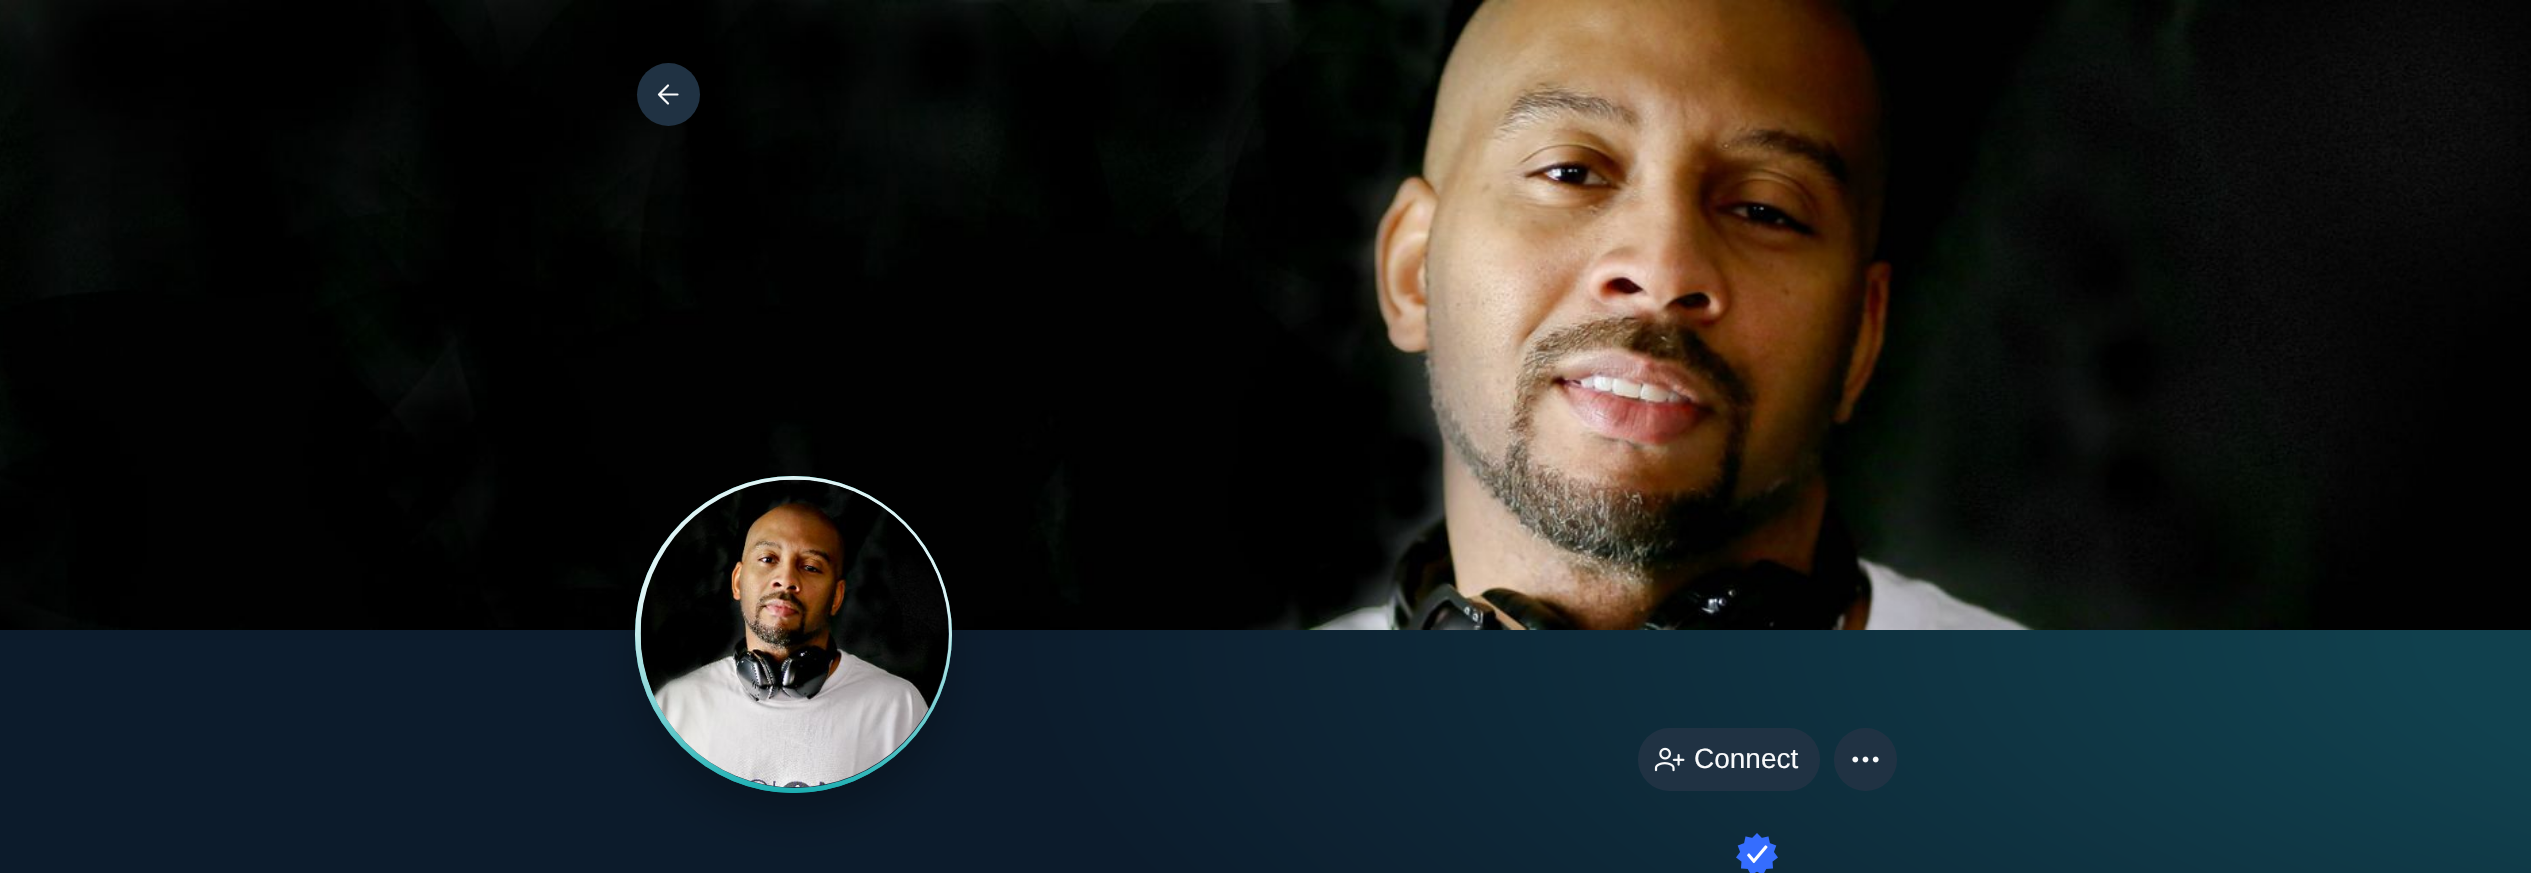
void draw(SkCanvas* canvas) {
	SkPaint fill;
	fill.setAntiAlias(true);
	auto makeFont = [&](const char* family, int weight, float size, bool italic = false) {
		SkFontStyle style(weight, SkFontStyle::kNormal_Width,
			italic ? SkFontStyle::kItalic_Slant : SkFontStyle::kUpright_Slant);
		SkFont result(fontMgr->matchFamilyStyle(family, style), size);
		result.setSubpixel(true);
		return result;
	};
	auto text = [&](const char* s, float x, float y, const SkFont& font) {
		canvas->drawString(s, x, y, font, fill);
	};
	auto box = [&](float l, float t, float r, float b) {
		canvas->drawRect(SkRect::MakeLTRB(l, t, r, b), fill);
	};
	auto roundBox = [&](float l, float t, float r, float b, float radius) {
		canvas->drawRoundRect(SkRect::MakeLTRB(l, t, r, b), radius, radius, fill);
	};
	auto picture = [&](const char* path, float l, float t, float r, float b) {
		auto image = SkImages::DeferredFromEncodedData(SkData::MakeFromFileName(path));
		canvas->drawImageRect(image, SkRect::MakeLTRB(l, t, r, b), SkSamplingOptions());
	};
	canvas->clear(0xFFFFFFFF);
	picture("image0.png", 0, 0, 2531, 630);
	fill.setColor(0xFF203243);
	canvas->drawCircle(668.5f, 94.5f, 31.5f, fill);
	fill.setStyle(SkPaint::kStroke_Style);
	fill.setStrokeWidth(2.2f);
	fill.setStrokeCap(SkPaint::kRound_Cap);
	fill.setStrokeJoin(SkPaint::kRound_Join);
	fill.setColor(0xFFF9FAFB);
	canvas->drawPath(SkPathBuilder().moveTo(660.5f, 94.5f).lineTo(677.5f, 94.5f).close().moveTo(668, 85.5f).lineTo(659, 94.5f).close().moveTo(668, 103.5f).lineTo(659, 94.5f).close().detach(), fill);
	fill.setStyle(SkPaint::kFill_Style);
	{
		const SkColor colors[] = {0xFF10404D, 0xFF0C1B2B};
		const float stops[] = {0.3f, 1};
		SkMatrix m = SkMatrix::Translate(3039, 630).preScale(2026, 700);
		fill.setShader(SkGradientShader::MakeRadial({0, 0}, 1, colors, stops, 2, SkTileMode::kClamp, 0, &m));
		fill.setAlpha(255);
	}
	box(0, 630, 2531, 873);
	fill.setShader(nullptr);
	fill.setColor(0x3D000000);
	fill.setMaskFilter(SkMaskFilter::MakeBlur(kNormal_SkBlurStyle, 21));
	canvas->drawRoundRect(SkRect::MakeLTRB(637, 504, 952, 819), 157.5f, 157.5f, fill);
	fill.setMaskFilter(nullptr);
	fill.setColor(0xFF1BAEB1);
	canvas->drawCircle(793.5f, 634.5f, 158.5f, fill);
	{
		const SkColor colors[] = {0xD9FFFFFF, 0xFF1BAEB1};
		const float stops[] = {0.4f, 1};
		const SkPoint ends[] = {{794, 476}, {794, 793}};
		fill.setShader(SkGradientShader::MakeLinear(ends, colors, stops, 2, SkTileMode::kClamp));
		fill.setAlpha(255);
	}
	canvas->drawCircle(793.5f, 634.5f, 158.5f, fill);
	fill.setShader(nullptr);
	fill.setColor(0xFF102132);
	canvas->drawCircle(795, 634, 154, fill);
	picture("image1.png", 640, 479, 949, 788);
	fill.setColor(0xFF203243);
	roundBox(1638, 728, 1820, 791, 31.5f);
	picture("image2.png", 1654, 747, 1685, 772);
	canvas->drawCircle(1865.5f, 759.5f, 31.5f, fill);
	picture("image3.png", 1852, 756, 1879, 763);
	picture("image4.png", 1736, 833, 1778, 873);
	auto font1 = makeFont("Liberation Sans", 400, 28);
	fill.setColor(0xFFF9FAFB);
	text("Connect", 1694, 768, font1);
}
